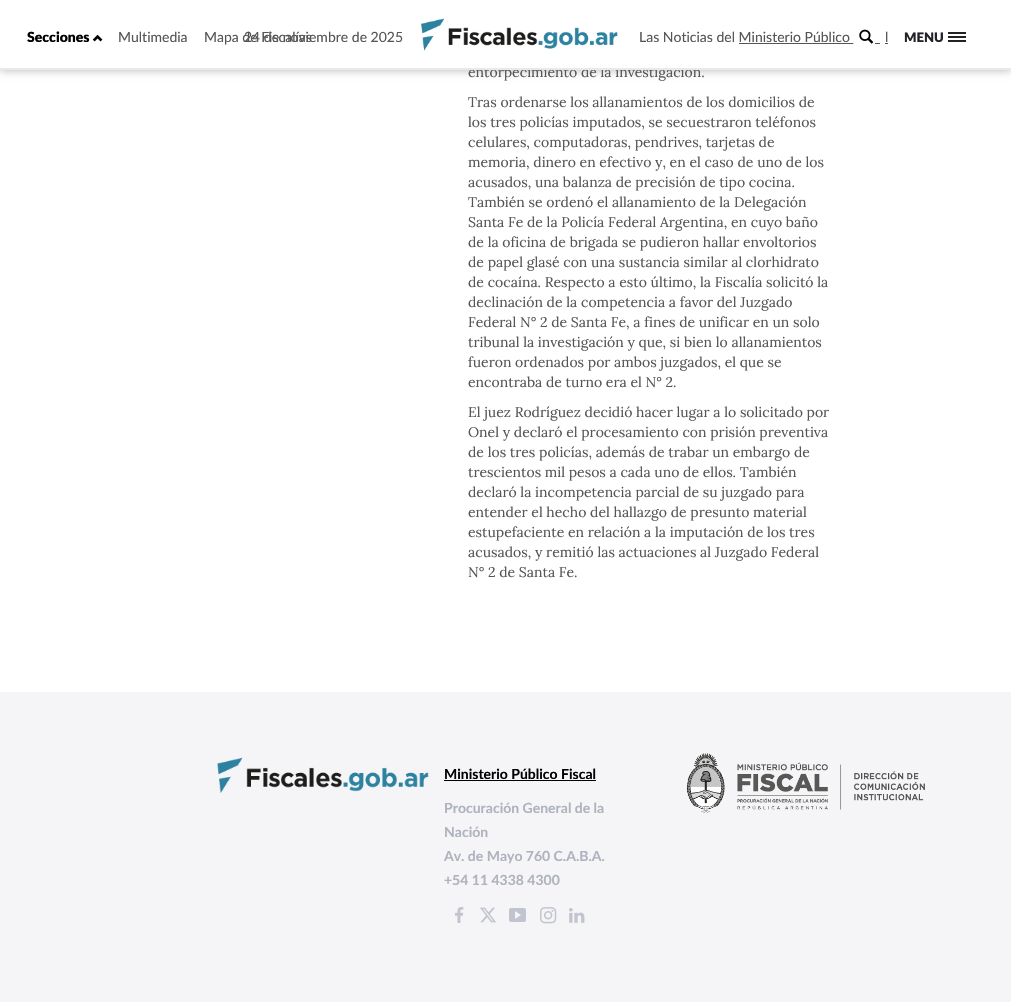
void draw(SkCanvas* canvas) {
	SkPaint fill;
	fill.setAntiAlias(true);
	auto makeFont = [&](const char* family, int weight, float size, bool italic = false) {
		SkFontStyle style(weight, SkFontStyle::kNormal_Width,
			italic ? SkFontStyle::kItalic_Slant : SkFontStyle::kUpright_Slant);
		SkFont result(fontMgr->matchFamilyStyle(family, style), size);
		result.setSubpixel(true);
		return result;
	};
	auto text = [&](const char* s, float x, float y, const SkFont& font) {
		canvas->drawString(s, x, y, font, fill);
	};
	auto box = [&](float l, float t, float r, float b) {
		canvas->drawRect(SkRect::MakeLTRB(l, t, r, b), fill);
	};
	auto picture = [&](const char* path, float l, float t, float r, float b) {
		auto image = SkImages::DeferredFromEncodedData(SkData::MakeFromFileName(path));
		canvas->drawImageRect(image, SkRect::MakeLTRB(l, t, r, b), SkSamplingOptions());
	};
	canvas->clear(0xFFFFFFFF);
	fill.setColor(0xFFC1C1C1);
	fill.setMaskFilter(SkMaskFilter::MakeBlur(kNormal_SkBlurStyle, 4));
	canvas->drawRect(SkRect::MakeLTRB(0, 1, 1011, 71), fill);
	fill.setMaskFilter(nullptr);
	fill.setColor(0xFFF5F5F7);
	box(0, 692, 1011, 1002);
	picture("image3.png", 217, 757, 429, 793);
	fill.setColor(0xFF000000);
	box(444, 780, 596, 781);
	picture("image4.png", 455, 907, 464, 923);
	picture("image5.png", 480, 907, 496, 923);
	picture("image6.png", 509, 908, 526, 922);
	picture("image7.png", 540, 907, 557, 924);
	picture("image8.png", 569, 908, 585, 923);
	picture("image9.png", 686, 753, 925, 814);
	auto font1 = makeFont("Lora", 400, 14);
	fill.setColor(0xFF555555);
	text("entorpecimiento de la investigación.", 468, 77, font1);
	fill.setColor(0xFFFFFFFF);
	box(0, 0, 1011, 68);
	fill.setColor(0xFF222222);
	box(948, 40, 966, 42);
	box(948, 32, 966, 34);
	box(948, 36, 966, 38);
	auto font2 = makeFont("Lato", 900, 13);
	fill.setColor(0xFF222228);
	text("MENU", 904, 42, font2);
	fill.setColor(0xFF555555);
	box(739, 43, 888, 44);
	fill.setColor(0xFFFFFFFF);
	box(873, 43, 875, 49);
	canvas->drawPath(SkPathBuilder().moveTo(863, 22).lineTo(873, 22).lineTo(873, 51).lineTo(863, 51).cubicTo(857.5f, 51, 853, 46.5f, 853, 41).lineTo(853, 32).cubicTo(853, 26.5f, 857.5f, 22, 863, 22).close().detach(), fill);
	picture("image0.png", 859, 29, 874, 44);
	canvas->drawPath(SkPathBuilder().moveTo(880, 23).lineTo(882.5f, 23).cubicTo(884, 23, 885, 24, 885, 25.5f).lineTo(885, 46.5f).cubicTo(885, 48, 884, 49, 882.5f, 49).lineTo(880, 49).close().detach(), fill);
	auto font3 = makeFont("Lato", 400, 14);
	fill.setColor(0xFF555555);
	text("l", 885, 42, font3);
	text("Las Noticias del Ministerio Público", 639, 42, font3);
	picture("image2.png", 421, 18, 618, 51);
	text("Mapa de Fiscalías", 204, 42, font3);
	text("24 de noviembre de 2025", 244, 42, font3);
	picture("image1.png", 92, 34, 103, 42);
	text("Multimedia", 118, 42, font3);
	auto font4 = makeFont("Lato", 900, 14);
	fill.setColor(0xFF000000);
	text("Secciones", 27, 42, font4);
	fill.setColor(0xFFE8EAEA);
	box(0, 68, 1011, 70);
	fill.setColor(0xFF555555);
	text("Tras ordenarse los allanamientos de los domicilios de", 468, 107, font1);
	text("los tres policías imputados, se secuestraron teléfonos", 468, 127, font1);
	text("celulares, computadoras, pendrives, tarjetas de", 468, 147, font1);
	text("memoria, dinero en efectivo y, en el caso de uno de los", 468, 167, font1);
	text("acusados, una balanza de precisión de tipo cocina.", 468, 187, font1);
	text("También se ordenó el allanamiento de la Delegación", 468, 207, font1);
	text("Santa Fe de la Policía Federal Argentina, en cuyo baño", 468, 227, font1);
	text("de la oficina de brigada se pudieron hallar envoltorios", 468, 247, font1);
	text("de papel glasé con una sustancia similar al clorhidrato", 468, 267, font1);
	text("de cocaína. Respecto a esto último, la Fiscalía solicitó la", 468, 287, font1);
	text("declinación de la competencia a favor del Juzgado", 468, 307, font1);
	text("Federal N° 2 de Santa Fe, a fines de unificar en un solo", 468, 327, font1);
	text("tribunal la investigación y que, si bien lo allanamientos", 468, 347, font1);
	text("fueron ordenados por ambos juzgados, el que se", 468, 367, font1);
	text("encontraba de turno era el N° 2.", 468, 387, font1);
	text("El juez Rodríguez decidió hacer lugar a lo solicitado por", 468, 417, font1);
	text("Onel y declaró el procesamiento con prisión preventiva", 468, 437, font1);
	text("de los tres policías, además de trabar un embargo de", 468, 457, font1);
	text("trescientos mil pesos a cada uno de ellos. También", 468, 477, font1);
	text("declaró la incompetencia parcial de su juzgado para", 468, 497, font1);
	text("entender el hecho del hallazgo de presunto material", 468, 517, font1);
	text("estupefaciente en relación a la imputación de los tres", 468, 537, font1);
	text("acusados, y remitió las actuaciones al Juzgado Federal", 468, 557, font1);
	text("N° 2 de Santa Fe.", 468, 577, font1);
	auto font5 = makeFont("Lato", 700, 14);
	fill.setColor(0xFF000000);
	text("Ministerio Público Fiscal", 444, 779, font5);
	fill.setColor(0xFFAFB3BF);
	text("Procuración General de la", 444, 813, font5);
	text("Nación", 444, 837, font5);
	text("Av. de Mayo 760 C.A.B.A.", 444, 861, font5);
	text("+54 11 4338 4300", 444, 885, font5);
}
